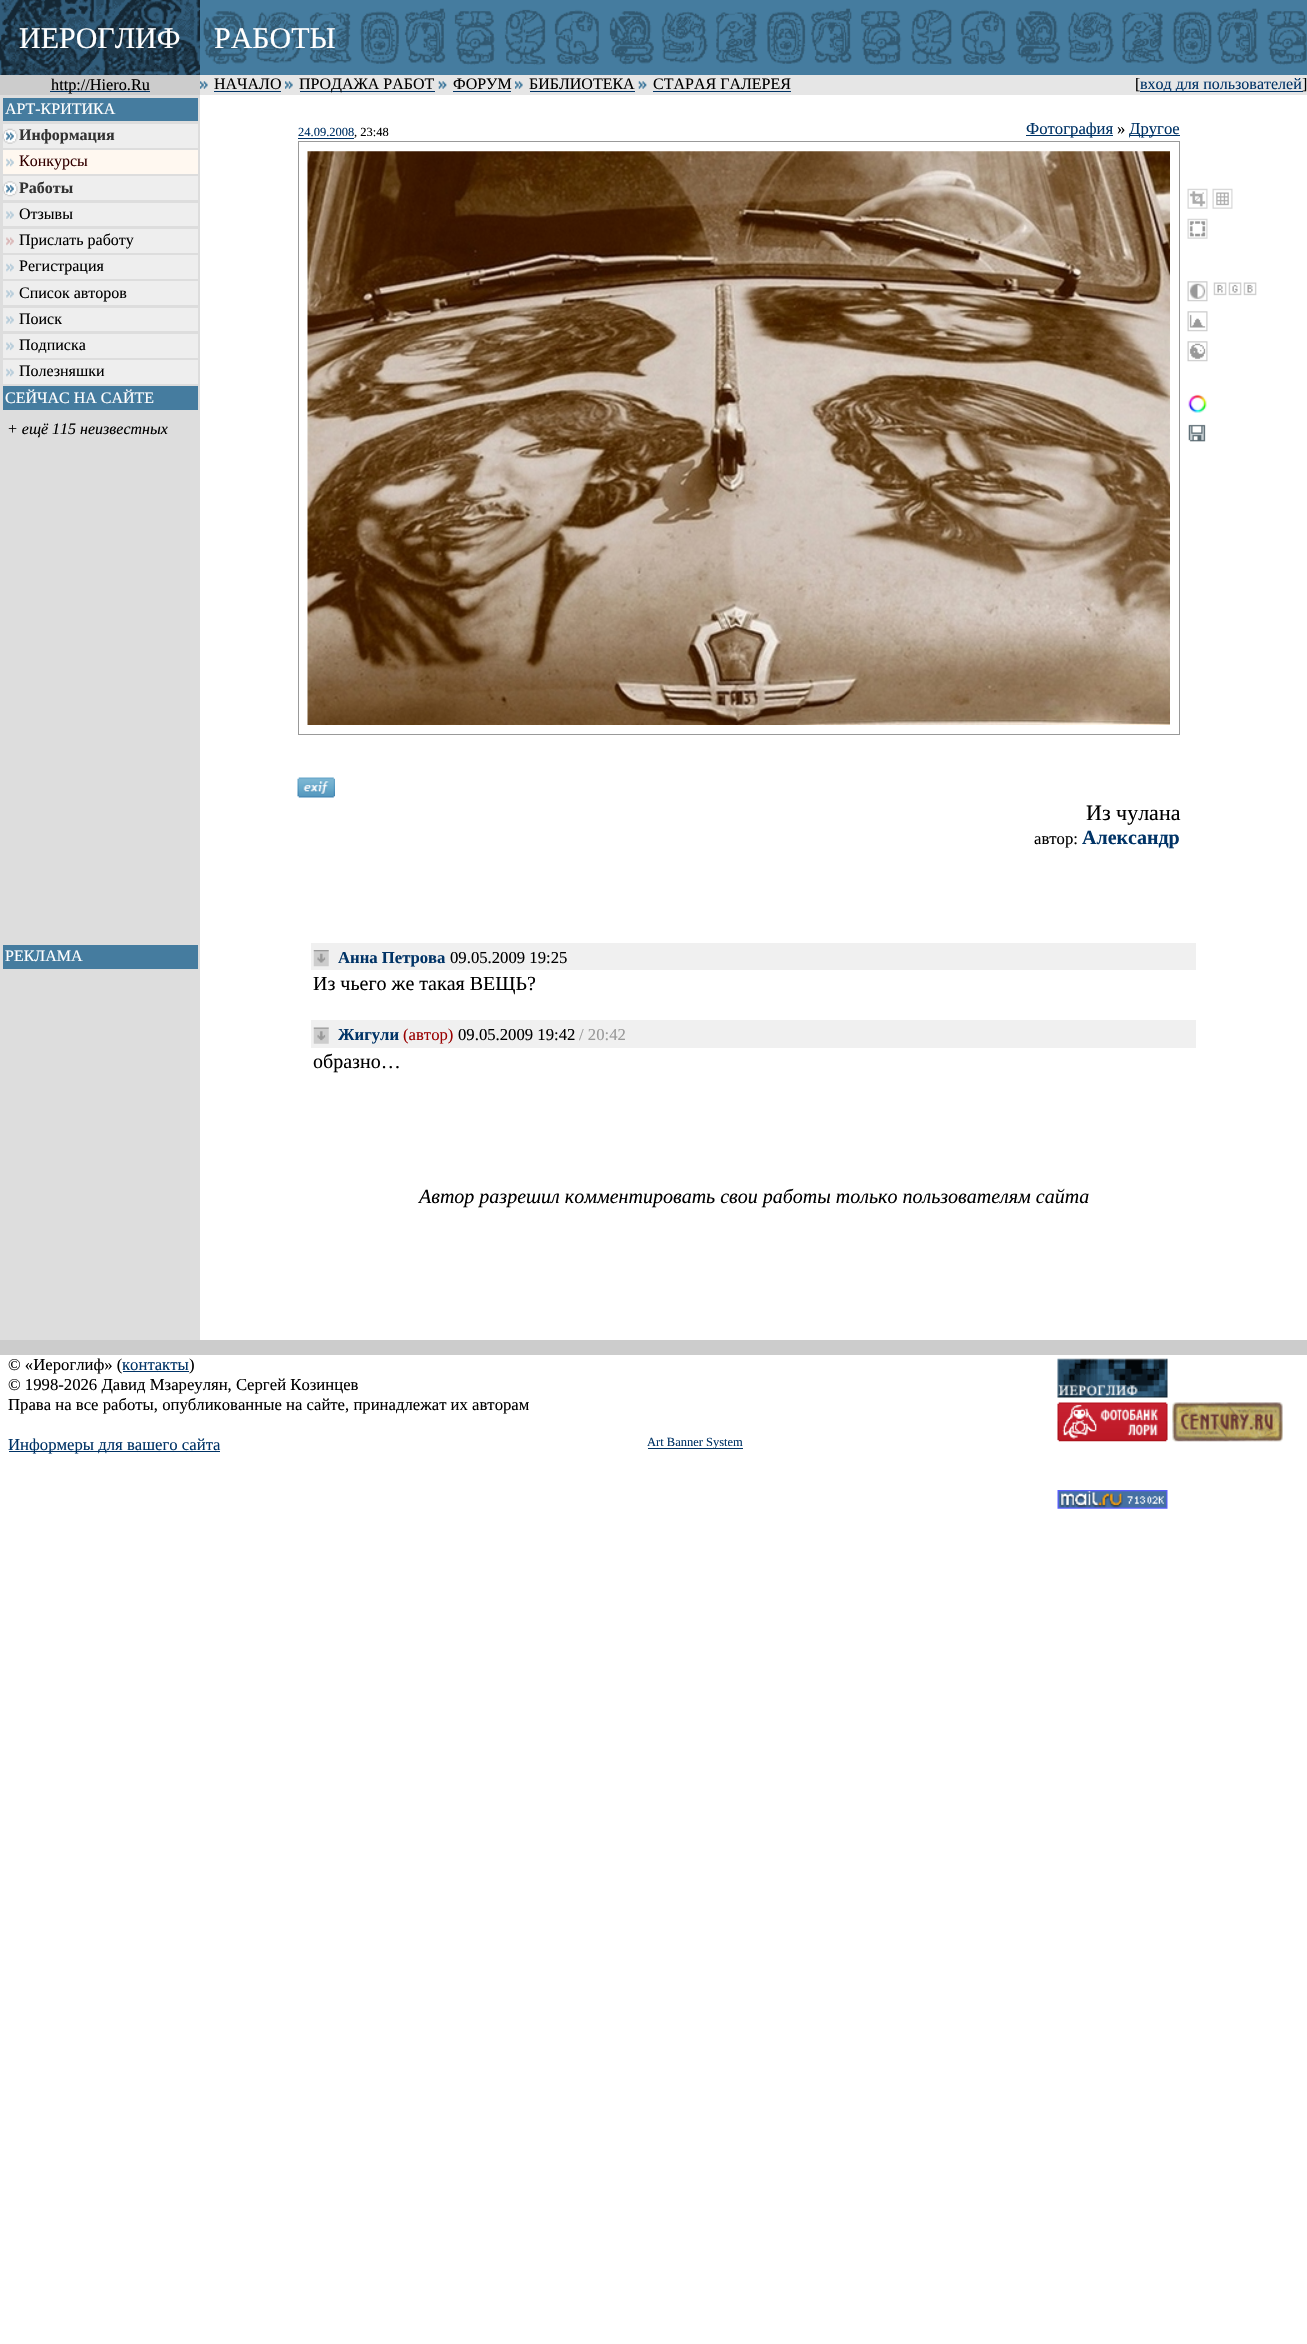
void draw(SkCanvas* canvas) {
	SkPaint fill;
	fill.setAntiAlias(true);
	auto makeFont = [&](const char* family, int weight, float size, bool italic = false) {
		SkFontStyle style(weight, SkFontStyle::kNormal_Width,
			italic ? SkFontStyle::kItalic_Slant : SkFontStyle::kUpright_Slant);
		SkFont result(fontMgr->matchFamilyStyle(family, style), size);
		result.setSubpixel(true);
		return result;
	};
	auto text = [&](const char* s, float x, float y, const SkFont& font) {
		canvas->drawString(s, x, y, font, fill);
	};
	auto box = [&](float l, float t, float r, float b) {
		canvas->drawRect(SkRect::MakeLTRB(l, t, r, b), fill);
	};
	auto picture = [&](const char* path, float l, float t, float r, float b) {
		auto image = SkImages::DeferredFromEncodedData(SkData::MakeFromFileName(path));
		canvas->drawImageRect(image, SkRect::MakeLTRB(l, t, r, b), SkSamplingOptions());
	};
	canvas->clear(0xFFFFFFFF);
	picture("image0.png", 0, 0, 200, 75);
	fill.setColor(0xFF457C9F);
	box(200, 0, 1307, 75);
	picture("image1.png", 203, 8, 1307, 65);
	fill.setColor(0xFFCCCCCC);
	box(0, 75, 200, 95);
	fill.setColor(0xFF003366);
	box(50, 91, 150, 92);
	fill.setColor(0xFFE6E6E6);
	box(200, 75, 1307, 95);
	picture("image2.png", 200, 81, 208, 89);
	fill.setColor(0xFF003366);
	box(214, 91, 281, 92);
	picture("image3.png", 285, 81, 293, 89);
	box(300, 91, 435, 92);
	picture("image4.png", 438, 81, 447, 89);
	box(453, 91, 511, 92);
	picture("image2.png", 515, 81, 523, 89);
	box(530, 91, 635, 92);
	picture("image4.png", 638, 81, 647, 89);
	box(653, 91, 791, 92);
	box(1140, 91, 1303, 92);
	fill.setColor(0xFFDDDDDD);
	box(0, 95, 200, 1340);
	fill.setColor(0xFF457C9F);
	box(3, 98, 198, 121);
	fill.setColor(0xFFEEEEEE);
	box(3, 124, 198, 148);
	picture("image5.png", 2, 128, 18, 144);
	fill.setColor(0xFFFFF8F0);
	box(3, 150, 198, 174);
	picture("image6.png", 6, 158, 14, 167);
	fill.setColor(0xFFEEEEEE);
	box(3, 176, 198, 200);
	picture("image7.png", 2, 181, 18, 197);
	box(3, 203, 198, 226);
	picture("image8.png", 6, 211, 14, 219);
	box(3, 229, 198, 253);
	picture("image9.png", 6, 237, 14, 246);
	box(3, 255, 198, 279);
	picture("image10.png", 6, 263, 14, 272);
	box(3, 281, 198, 305);
	picture("image11.png", 6, 290, 14, 298);
	box(3, 308, 198, 331);
	picture("image8.png", 6, 316, 14, 324);
	box(3, 334, 198, 358);
	picture("image12.png", 6, 342, 14, 351);
	box(3, 360, 198, 384);
	picture("image10.png", 6, 368, 14, 377);
	fill.setColor(0xFF457C9F);
	box(3, 386, 198, 410);
	box(3, 945, 198, 969);
	fill.setColor(0xFF003366);
	box(298, 138, 354, 139);
	box(1026, 135, 1113, 136);
	box(1130, 135, 1180, 136);
	fill.setStyle(SkPaint::kStroke_Style);
	fill.setStrokeWidth(1);
	fill.setColor(0xFF999999);
	canvas->drawRect(SkRect::MakeLTRB(298.5f, 141.5f, 1179.5f, 734.5f), fill);
	picture("image13.png", 307, 151, 1170, 725);
	picture("image14.png", 1187, 188, 1208, 209);
	picture("image15.png", 1212, 188, 1233, 209);
	picture("image16.png", 1187, 218, 1208, 239);
	picture("image17.png", 1187, 281, 1208, 302);
	picture("image18.png", 1213, 282, 1227, 296);
	picture("image19.png", 1228, 282, 1242, 296);
	picture("image20.png", 1243, 282, 1257, 296);
	picture("image21.png", 1187, 311, 1208, 332);
	picture("image22.png", 1187, 341, 1208, 362);
	picture("image23.png", 1188, 394, 1207, 413);
	picture("image24.png", 1188, 424, 1206, 442);
	picture("image25.png", 297, 777, 335, 798);
	fill.setStyle(SkPaint::kFill_Style);
	fill.setColor(0xFFF0F0F0);
	box(311, 943, 1196, 970);
	picture("image26.png", 313, 950, 329, 967);
	box(311, 1020, 1196, 1048);
	picture("image27.png", 313, 1027, 329, 1044);
	fill.setColor(0xFFCCCCCC);
	box(0, 1340, 1307, 1355);
	fill.setColor(0xFF003366);
	box(123, 1371, 189, 1372);
	box(9, 1451, 220, 1452);
	box(648, 1448, 743, 1449);
	picture("image28.png", 1057, 1358, 1168, 1398);
	picture("image29.png", 1057, 1402, 1168, 1442);
	picture("image30.png", 1172, 1402, 1283, 1442);
	picture("image31.png", 1057, 1490, 1168, 1509);
	auto font1 = makeFont("Liberation Serif", 400, 30);
	fill.setColor(0xFFFFFFFF);
	text("ИЕРОГЛИФ", 19, 48, font1);
	text("РАБОТЫ", 214, 48, font1);
	auto font2 = makeFont("Liberation Serif", 400, 16.25f);
	fill.setColor(0xFF000000);
	text("http://Hiero.Ru", 51, 90, font2);
	auto font3 = makeFont("Liberation Serif", 400, 16);
	text("НАЧАЛО", 214, 89, font3);
	text("ПРОДАЖА РАБОТ", 299, 89, font3);
	text("ФОРУМ", 453, 89, font3);
	text("БИБЛИОТЕКА", 529, 89, font3);
	text("СТАРАЯ ГАЛЕРЕЯ", 653, 89, font3);
	text("[", 1135, 89, font3);
	fill.setColor(0xFF003366);
	text("вход для пользователей", 1140, 89, font3);
	fill.setColor(0xFF000000);
	text("]", 1302, 89, font3);
	fill.setColor(0xFFFFFFFF);
	text("АРТ-КРИТИКА", 5, 114, font3);
	auto font4 = makeFont("Liberation Serif", 700, 16);
	fill.setColor(0xFF333333);
	text("Информация", 19, 140, font4);
	fill.setColor(0xFF330000);
	text("Конкурсы", 19, 166, font3);
	fill.setColor(0xFF333333);
	text("Работы", 19, 193, font4);
	fill.setColor(0xFF000000);
	text("Отзывы", 19, 219, font3);
	text("Прислать работу", 19, 245, font3);
	text("Регистрация", 19, 271, font3);
	text("Список авторов", 19, 298, font3);
	text("Поиск", 19, 324, font3);
	text("Подписка", 19, 350, font3);
	text("Полезняшки", 19, 376, font3);
	fill.setColor(0xFFFFFFFF);
	text("СЕЙЧАС НА САЙТЕ", 5, 403, font3);
	auto font5 = makeFont("Liberation Serif", 400, 16, true);
	fill.setColor(0xFF000000);
	text("+ ещё 115 неизвестных", 7, 434, font5);
	fill.setColor(0xFFFFFFFF);
	text("РЕКЛАМА", 5, 961, font3);
	auto font6 = makeFont("Liberation Serif", 400, 12.5f);
	fill.setColor(0xFF003366);
	text("24.09.2008", 298, 136, font6);
	fill.setColor(0xFF000000);
	text(", 23:48", 354, 136, font6);
	auto font7 = makeFont("Liberation Serif", 400, 16.7f);
	fill.setColor(0xFF003366);
	text("Фотография", 1026, 134, font7);
	fill.setColor(0xFF000000);
	text("»", 1117, 134, font7);
	fill.setColor(0xFF003366);
	text("Другое", 1129, 134, font7);
	auto font8 = makeFont("Liberation Serif", 400, 22);
	fill.setColor(0xFF000000);
	text("Из чулана", 1086, 820, font8);
	text("автор:", 1034, 844, font7);
	auto font9 = makeFont("Liberation Serif", 700, 20);
	fill.setColor(0xFF003366);
	text("Александр", 1082, 844, font9);
	auto font10 = makeFont("Liberation Serif", 700, 16.7f);
	text("Анна Петрова", 338, 963, font10);
	fill.setColor(0xFF000000);
	text("09.05.2009 19:25", 450, 963, font7);
	auto font11 = makeFont("Liberation Serif", 400, 20);
	text("Из чьего же такая ВЕЩЬ?", 313, 990, font11);
	fill.setColor(0xFF003366);
	text("Жигули", 338, 1040, font10);
	fill.setColor(0xFF990000);
	text("(автор)", 403, 1040, font7);
	fill.setColor(0xFF000000);
	text("09.05.2009 19:42", 458, 1040, font7);
	fill.setColor(0xFF999999);
	text("/ 20:42", 579, 1040, font7);
	fill.setColor(0xFF000000);
	text("образно…", 313, 1068, font11);
	auto font12 = makeFont("Liberation Serif", 400, 20, true);
	text("Автор разрешил комментировать свои работы только пользователям сайта", 419, 1203, font12);
	text("© «Иероглиф» (", 8, 1370, font7);
	fill.setColor(0xFF003366);
	text("контакты", 122, 1370, font7);
	fill.setColor(0xFF000000);
	text(")", 189, 1370, font7);
	text("© 1998-2026 Давид Мзареулян, Сергей Козинцев", 8, 1390, font7);
	text("Права на все работы, опубликованные на сайте, принадлежат их авторам", 8, 1410, font7);
	fill.setColor(0xFF003366);
	text("Информеры для вашего сайта", 8, 1450, font7);
	text("Art Banner System", 647, 1446, font6);
}
